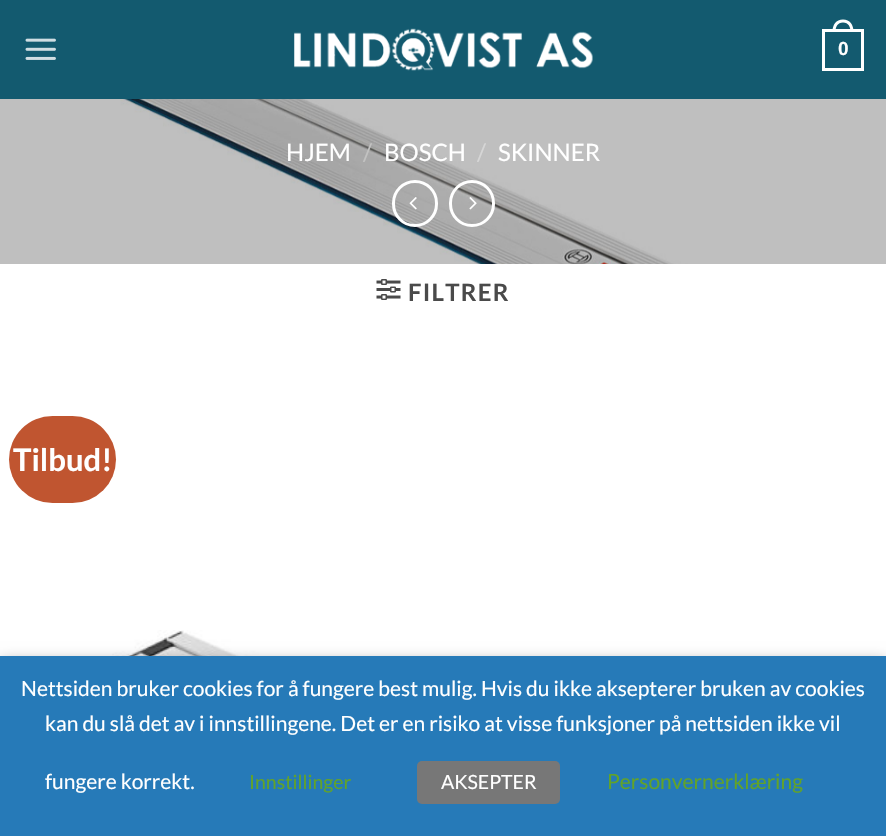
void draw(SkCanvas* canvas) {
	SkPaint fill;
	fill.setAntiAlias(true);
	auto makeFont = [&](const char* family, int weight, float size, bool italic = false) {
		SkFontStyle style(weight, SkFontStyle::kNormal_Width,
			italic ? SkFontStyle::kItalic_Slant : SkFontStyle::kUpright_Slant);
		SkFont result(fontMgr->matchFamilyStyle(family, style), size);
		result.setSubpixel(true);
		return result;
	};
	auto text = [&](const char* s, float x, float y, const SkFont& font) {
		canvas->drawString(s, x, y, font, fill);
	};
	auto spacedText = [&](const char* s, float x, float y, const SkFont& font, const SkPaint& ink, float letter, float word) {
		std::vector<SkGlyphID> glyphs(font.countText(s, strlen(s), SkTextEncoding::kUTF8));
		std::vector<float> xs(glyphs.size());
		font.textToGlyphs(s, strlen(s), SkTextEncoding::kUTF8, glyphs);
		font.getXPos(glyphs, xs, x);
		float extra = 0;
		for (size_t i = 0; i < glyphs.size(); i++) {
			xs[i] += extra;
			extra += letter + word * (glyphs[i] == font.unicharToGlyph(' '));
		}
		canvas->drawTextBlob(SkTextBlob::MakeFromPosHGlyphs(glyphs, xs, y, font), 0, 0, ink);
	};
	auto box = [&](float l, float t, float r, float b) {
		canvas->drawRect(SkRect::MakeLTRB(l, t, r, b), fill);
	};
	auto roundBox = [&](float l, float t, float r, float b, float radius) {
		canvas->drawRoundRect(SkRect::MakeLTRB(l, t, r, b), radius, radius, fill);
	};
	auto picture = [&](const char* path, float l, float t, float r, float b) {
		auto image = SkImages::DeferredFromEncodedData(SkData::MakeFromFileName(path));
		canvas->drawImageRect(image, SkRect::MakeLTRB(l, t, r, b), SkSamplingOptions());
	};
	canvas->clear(0xFFFFFFFF);
	fill.setColor(0xFF135A6F);
	box(0, 0, 886, 99);
	picture("image0.png", 25, 38, 56, 60);
	picture("image1.png", 294, 28, 593, 71);
	fill.setStyle(SkPaint::kStroke_Style);
	fill.setStrokeWidth(3);
	fill.setColor(0xFFFFFFFF);
	canvas->drawRect(SkRect::MakeLTRB(823.5f, 30.5f, 862.5f, 69.5f), fill);
	fill.setStyle(SkPaint::kFill_Style);
	canvas->drawPath(SkPathBuilder(SkPathFillType::kEvenOdd).moveTo(843, 19.5f).cubicTo(850, 19.5f, 853.5f, 25, 853.5f, 31.5f).lineTo(832.5f, 31.5f).cubicTo(832.5f, 25, 836, 19.5f, 843, 19.5f).close().moveTo(843, 22.5f).cubicTo(848.5f, 22.5f, 850.5f, 27, 850.5f, 31.5f).lineTo(835.5f, 31.5f).cubicTo(835.5f, 27, 837.5f, 22.5f, 843, 22.5f).close().detach(), fill);
	picture("image2.png", 0, 99, 886, 264);
	fill.setStyle(SkPaint::kStroke_Style);
	canvas->drawRoundRect(SkRect::MakeLTRB(393.5f, 181.5f, 436.5f, 225.5f), 21.5f, 21.5f, fill);
	picture("image3.png", 409, 197, 417, 210);
	canvas->drawRoundRect(SkRect::MakeLTRB(450.5f, 181.5f, 493.5f, 225.5f), 21.5f, 21.5f, fill);
	picture("image4.png", 469, 197, 477, 210);
	picture("image5.png", 376, 279, 401, 300);
	fill.setStyle(SkPaint::kFill_Style);
	fill.setColor(0xFFC05530);
	roundBox(9, 416, 116, 503, 43.5f);
	picture("image6.png", 101, 630, 647, 656);
	fill.setColor(0x80000000);
	fill.setMaskFilter(SkMaskFilter::MakeBlur(kNormal_SkBlurStyle, 7.5f));
	canvas->drawRect(SkRect::MakeLTRB(0, 663, 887, 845), fill);
	fill.setMaskFilter(nullptr);
	fill.setColor(0xFF267AB8);
	box(0, 656, 886, 836);
	fill.setColor(0xFF777777);
	roundBox(417, 761, 560, 804, 5);
	auto font1 = makeFont("Liberation Sans", 700, 19);
	fill.setColor(0xFFFFFFFF);
	text("0", 838, 55, font1);
	auto font2 = makeFont("Lato", 400, 24);
	text("HJEM", 286, 161, font2);
	fill.setColor(0xFFC2C2C1);
	text("/", 363, 161, font2);
	fill.setColor(0xFFFFFFFF);
	text("BOSCH", 384, 161, font2);
	fill.setColor(0xFFD6D6D6);
	text("/", 477, 161, font2);
	fill.setColor(0xFFFFFFFF);
	text("SKINNER", 498, 161, font2);
	auto font3 = makeFont("Lato", 700, 24);
	fill.setColor(0xFF4A4A4A);
	spacedText("FILTRER", 408, 301, font3, fill, 1.25f, 0);
	auto font4 = makeFont("Lato", 700, 31);
	fill.setColor(0xFFFFFFFF);
	text("Tilbud!", 13, 471, font4);
	auto font5 = makeFont("Lato", 400, 21);
	text("Nettsiden bruker cookies for å fungere best mulig. Hvis du ikke aksepterer bruken av cookies", 21, 696, font5);
	text("kan du slå det av i innstillingene. Det er en risiko at visse funksjoner på nettsiden ikke vil", 45, 731, font5);
	text("fungere korrekt.", 45, 789, font5);
	auto font6 = makeFont("Lato", 400, 19.5f);
	fill.setColor(0xFF62A329);
	text("Innstillinger", 249, 789, font6);
	fill.setColor(0xFFFFFFFF);
	text("AKSEPTER", 441, 789, font6);
	fill.setColor(0xFF62A329);
	text("Personvernerklæring", 607, 789, font5);
}
